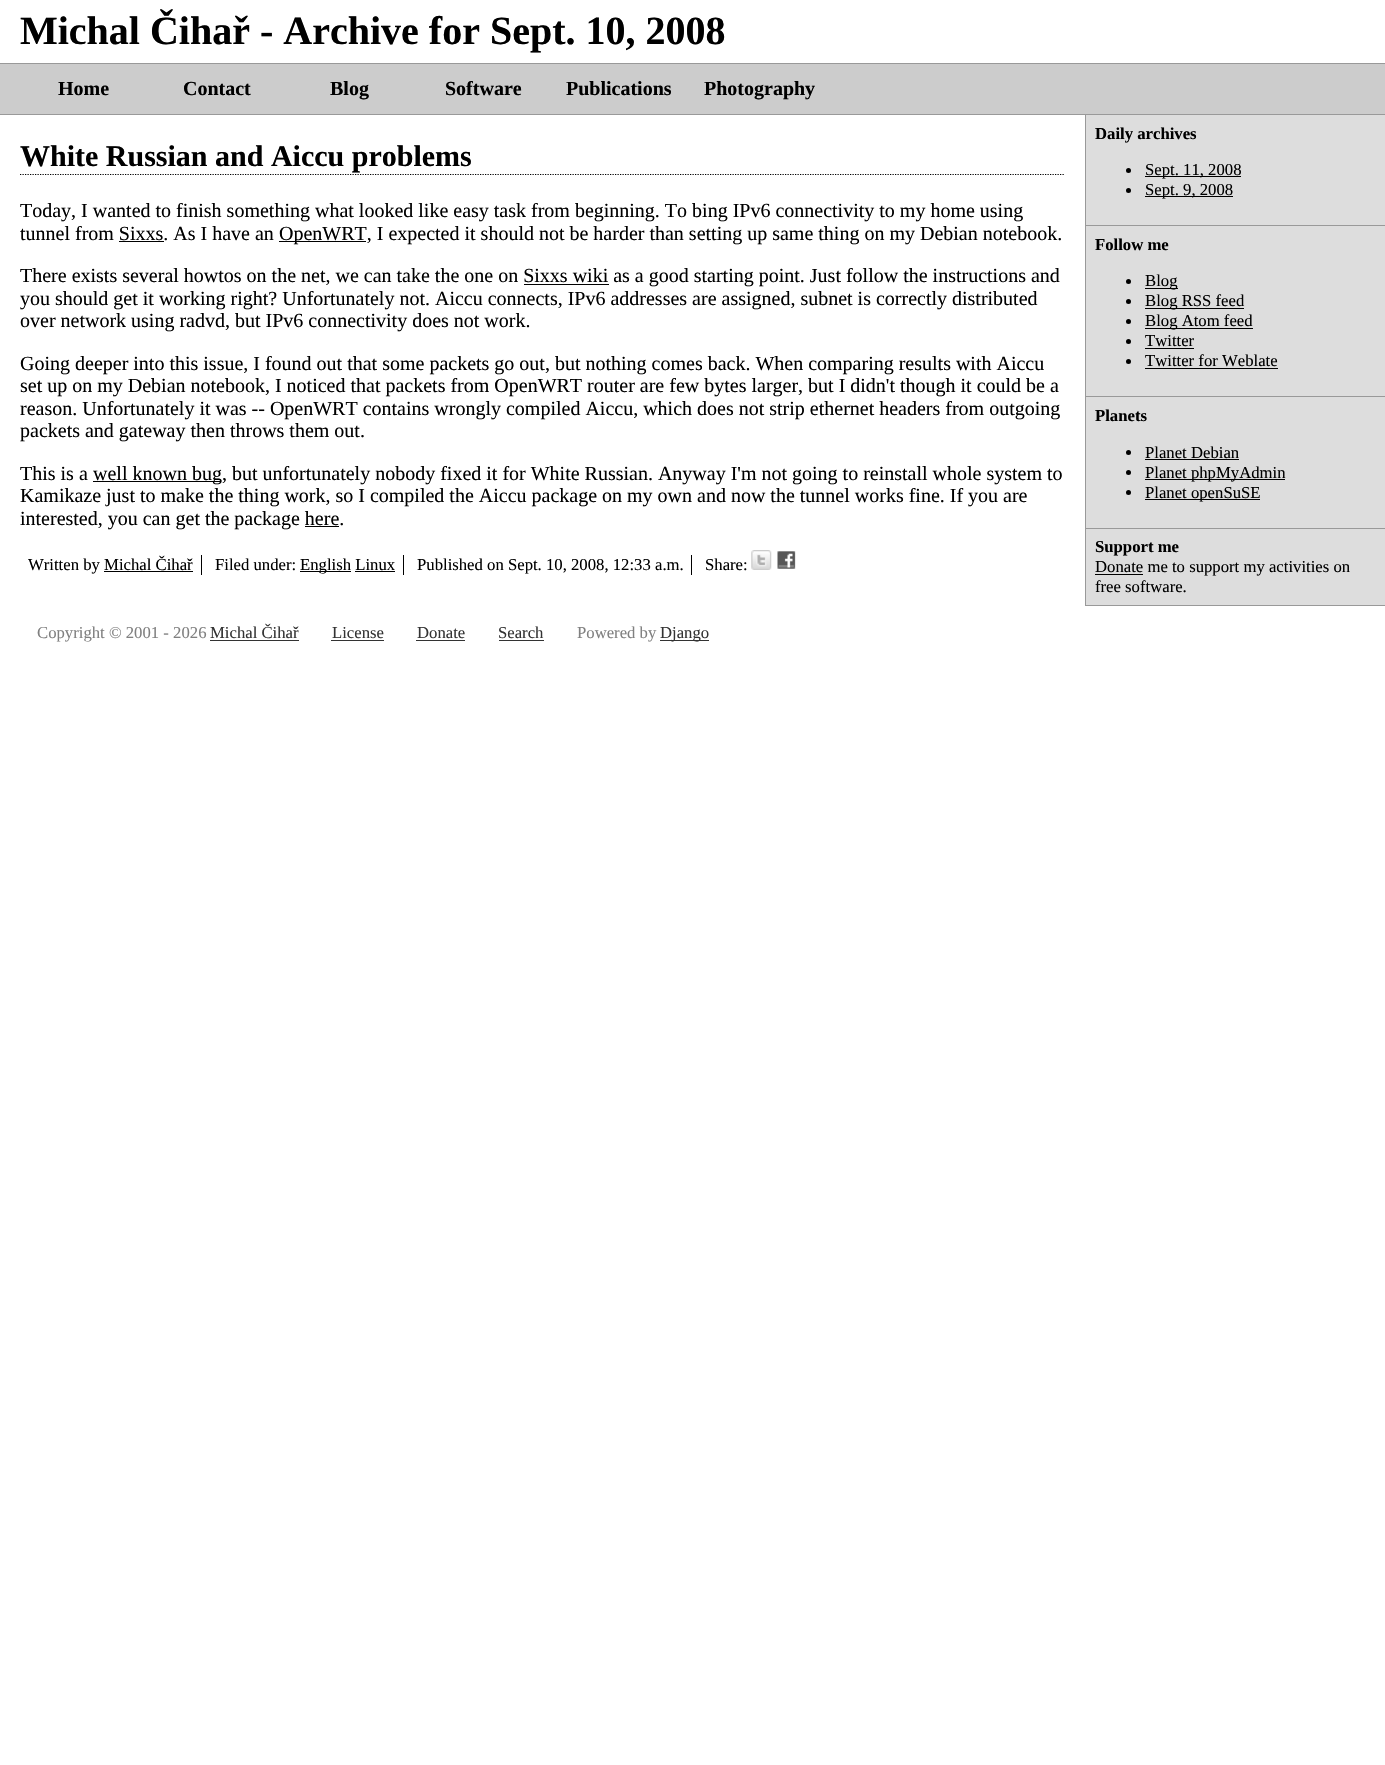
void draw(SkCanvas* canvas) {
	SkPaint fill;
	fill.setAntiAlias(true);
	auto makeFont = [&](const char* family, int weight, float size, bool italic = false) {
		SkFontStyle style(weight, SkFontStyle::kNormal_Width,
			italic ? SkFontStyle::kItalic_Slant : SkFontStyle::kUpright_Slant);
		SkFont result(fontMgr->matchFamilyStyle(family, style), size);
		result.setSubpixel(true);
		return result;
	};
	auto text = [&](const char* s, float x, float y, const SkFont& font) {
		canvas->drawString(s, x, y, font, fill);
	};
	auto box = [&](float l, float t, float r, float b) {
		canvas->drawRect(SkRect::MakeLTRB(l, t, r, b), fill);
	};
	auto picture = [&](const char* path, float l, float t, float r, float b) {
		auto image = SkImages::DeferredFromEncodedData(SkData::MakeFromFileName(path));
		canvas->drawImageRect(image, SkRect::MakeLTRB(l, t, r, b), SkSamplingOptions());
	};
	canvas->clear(0xFFFFFFFF);
	fill.setColor(0xFFCCCCCC);
	box(0, 64, 1385, 114);
	fill.setColor(0xFF999999);
	box(0, 63, 1385, 64);
	box(0, 114, 1385, 115);
	fill.setStyle(SkPaint::kStroke_Style);
	fill.setStrokeWidth(1.2f);
	fill.setColor(0xFF000000);
	fill.setPathEffect(SkDashPathEffect::Make({{1.25f, 1.25f}}, 0));
	canvas->drawPath(SkPathBuilder().moveTo(20, 174.5f).lineTo(1065, 174.5f).detach(), fill);
	fill.setPathEffect(nullptr);
	fill.setStyle(SkPaint::kFill_Style);
	box(279, 241, 366, 242);
	box(119, 241, 164, 242);
	box(524, 284, 609, 285);
	box(93, 481, 221, 482);
	box(305, 526, 339, 527);
	box(201, 555, 202, 575);
	box(104, 571, 193, 572);
	box(403, 555, 404, 575);
	box(300, 571, 351, 572);
	box(355, 571, 395, 572);
	box(691, 555, 692, 575);
	picture("image0.png", 751, 550, 772, 570);
	picture("image1.png", 777, 551, 796, 569);
	fill.setColor(0xFFDDDDDD);
	box(1086, 115, 1385, 225);
	fill.setColor(0xFF999999);
	box(1085, 225, 1385, 226);
	box(1085, 115, 1086, 226);
	fill.setColor(0xFF000000);
	canvas->drawCircle(1128.5f, 170.5f, 2.5f, fill);
	box(1145, 176, 1241, 177);
	canvas->drawCircle(1128.5f, 190.5f, 2.5f, fill);
	box(1145, 196, 1233, 197);
	fill.setColor(0xFFDDDDDD);
	box(1086, 226, 1385, 528);
	fill.setColor(0xFF999999);
	box(1085, 396, 1385, 397);
	box(1085, 226, 1086, 398);
	fill.setColor(0xFF000000);
	canvas->drawCircle(1128.5f, 281.5f, 2.5f, fill);
	box(1145, 288, 1178, 289);
	canvas->drawCircle(1128.5f, 301.5f, 2.5f, fill);
	box(1145, 308, 1244, 309);
	canvas->drawCircle(1128.5f, 321.5f, 2.5f, fill);
	box(1145, 328, 1253, 329);
	canvas->drawCircle(1128.5f, 341.5f, 2.5f, fill);
	box(1145, 348, 1194, 349);
	canvas->drawCircle(1128.5f, 361.5f, 2.5f, fill);
	box(1145, 368, 1278, 369);
	fill.setColor(0xFF999999);
	box(1085, 528, 1385, 529);
	box(1085, 398, 1086, 529);
	fill.setColor(0xFF000000);
	canvas->drawCircle(1128.5f, 452.5f, 2.5f, fill);
	box(1145, 459, 1239, 460);
	canvas->drawCircle(1128.5f, 472.5f, 2.5f, fill);
	box(1145, 479, 1285, 480);
	canvas->drawCircle(1128.5f, 492.5f, 2.5f, fill);
	box(1145, 499, 1260, 500);
	fill.setColor(0xFFDDDDDD);
	box(1086, 529, 1385, 605);
	fill.setColor(0xFF999999);
	box(1085, 605, 1385, 606);
	box(1085, 529, 1086, 606);
	fill.setColor(0xFF000000);
	box(1095, 574, 1143, 575);
	fill.setColor(0xFF333333);
	box(210, 640, 299, 641);
	box(331, 640, 384, 641);
	box(416, 640, 465, 641);
	box(499, 640, 544, 641);
	box(660, 640, 709, 641);
	auto font1 = makeFont("Liberation Serif", 700, 40);
	fill.setColor(0xFF000000);
	text("Michal Čihař - Archive for Sept. 10, 2008", 20, 44, font1);
	auto font2 = makeFont("Liberation Serif", 700, 20);
	text("Home", 58, 95, font2);
	text("Contact", 183, 95, font2);
	text("Blog", 330, 95, font2);
	text("Software", 445, 95, font2);
	text("Publications", 566, 95, font2);
	text("Photography", 704, 95, font2);
	auto font3 = makeFont("Liberation Serif", 700, 30);
	text("White Russian and Aiccu problems", 20, 166, font3);
	auto font4 = makeFont("Liberation Serif", 400, 20);
	text("Today, I wanted to finish something what looked like easy task from beginning. To bing IPv6 connectivity to my home using", 20, 217, font4);
	text("tunnel from Sixxs. As I have an", 20, 240, font4);
	text("OpenWRT, I expected it should not be harder than setting up same thing on my Debian notebook.", 279, 240, font4);
	text("There exists several howtos on the net, we can take the one on Sixxs wiki as a good starting point. Just follow the instructions and", 20, 282, font4);
	text("you should get it working right? Unfortunately not. Aiccu connects, IPv6 addresses are assigned, subnet is correctly distributed", 20, 305, font4);
	text("over network using radvd, but IPv6 connectivity does not work.", 20, 327, font4);
	text("Going deeper into this issue, I found out that some packets go out, but nothing comes back. When comparing results with Aiccu", 20, 370, font4);
	text("set up on my Debian notebook, I noticed that packets from OpenWRT router are few bytes larger, but I didn't though it could be a", 20, 392, font4);
	text("reason. Unfortunately it was -- OpenWRT contains wrongly compiled Aiccu, which does not strip ethernet headers from outgoing", 20, 415, font4);
	text("packets and gateway then throws them out.", 20, 437, font4);
	text("This is a", 20, 480, font4);
	text("well known bug, but unfortunately nobody fixed it for White Russian. Anyway I'm not going to reinstall whole system to", 93, 480, font4);
	text("Kamikaze just to make the thing work, so I compiled the Aiccu package on my own and now the tunnel works fine. If you are", 20, 502, font4);
	text("interested, you can get the package here.", 20, 525, font4);
	auto font5 = makeFont("Liberation Serif", 400, 16.7f);
	text("Written by Michal Čihař", 28, 570, font5);
	text("Filed under:", 215, 570, font5);
	text("English Linux", 300, 570, font5);
	text("Published on Sept. 10, 2008, 12:33 a.m.", 417, 570, font5);
	text("Share:", 705, 570, font5);
	auto font6 = makeFont("Liberation Serif", 700, 16.7f);
	text("Daily archives", 1095, 139, font6);
	text("Sept. 11, 2008", 1145, 175, font5);
	text("Sept. 9, 2008", 1145, 195, font5);
	text("Follow me", 1095, 250, font6);
	text("Blog", 1145, 286, font5);
	text("Blog RSS feed", 1145, 306, font5);
	text("Blog Atom feed", 1145, 326, font5);
	text("Twitter", 1145, 346, font5);
	text("Twitter for Weblate", 1145, 366, font5);
	text("Planets", 1095, 421, font6);
	text("Planet Debian", 1145, 458, font5);
	text("Planet phpMyAdmin", 1145, 478, font5);
	text("Planet openSuSE", 1145, 498, font5);
	text("Support me", 1095, 552, font6);
	text("Donate me to support my activities on", 1095, 572, font5);
	text("free software.", 1095, 592, font5);
	fill.setColor(0xFF808080);
	text("Copyright © 2001 - 2026", 37, 638, font5);
	fill.setColor(0xFF333333);
	text("Michal Čihař", 210, 638, font5);
	text("License", 332, 638, font5);
	text("Donate", 417, 638, font5);
	text("Search", 498, 638, font5);
	fill.setColor(0xFF808080);
	text("Powered by", 577, 638, font5);
	fill.setColor(0xFF333333);
	text("Django", 660, 638, font5);
}
